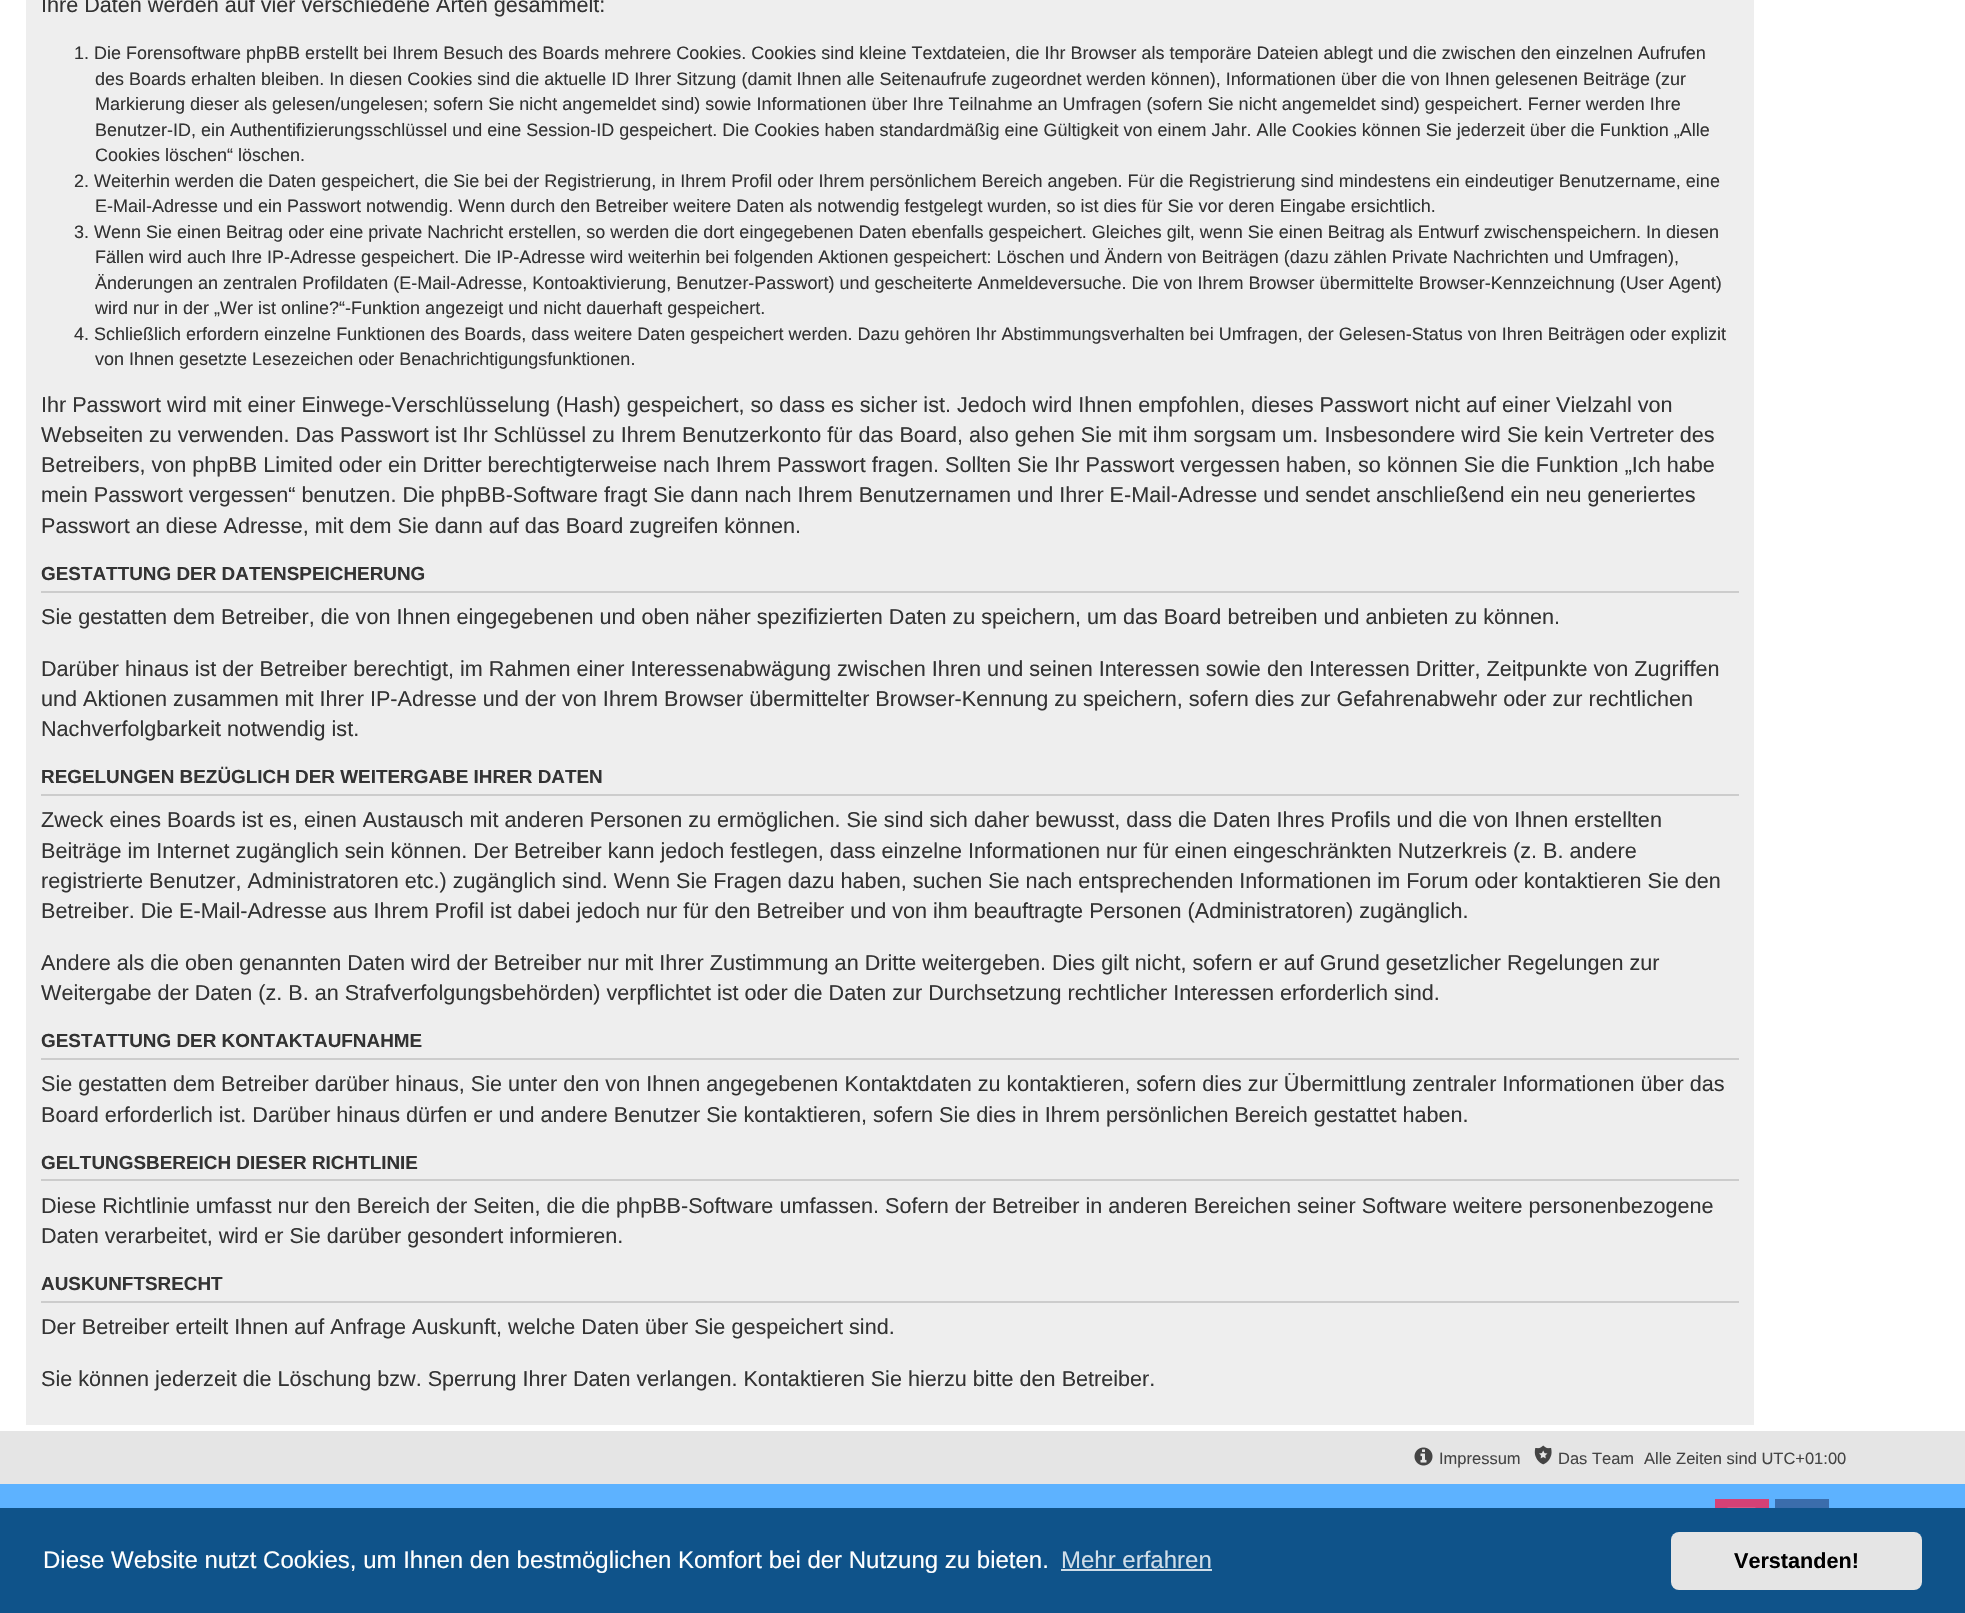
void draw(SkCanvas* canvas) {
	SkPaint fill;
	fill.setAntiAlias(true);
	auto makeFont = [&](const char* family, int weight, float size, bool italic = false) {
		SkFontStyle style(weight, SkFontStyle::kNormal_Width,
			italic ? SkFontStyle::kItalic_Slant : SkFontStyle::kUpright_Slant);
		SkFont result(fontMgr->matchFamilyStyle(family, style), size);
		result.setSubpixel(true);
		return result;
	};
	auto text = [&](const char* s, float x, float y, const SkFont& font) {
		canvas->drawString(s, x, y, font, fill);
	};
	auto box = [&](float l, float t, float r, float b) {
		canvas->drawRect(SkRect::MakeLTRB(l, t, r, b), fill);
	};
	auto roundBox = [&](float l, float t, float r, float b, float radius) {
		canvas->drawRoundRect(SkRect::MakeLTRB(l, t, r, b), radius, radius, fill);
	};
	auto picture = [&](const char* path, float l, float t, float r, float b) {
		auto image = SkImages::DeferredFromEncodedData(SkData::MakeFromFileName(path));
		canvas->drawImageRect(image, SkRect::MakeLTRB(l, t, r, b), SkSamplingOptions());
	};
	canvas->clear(0xFFFFFFFF);
	fill.setColor(0xFFEEEEEE);
	box(26, 0, 1754, 1425);
	fill.setColor(0xFFCCCCCC);
	box(41, 591, 1739, 593);
	box(41, 794, 1739, 796);
	box(41, 1058, 1739, 1060);
	box(41, 1179, 1739, 1181);
	box(41, 1301, 1739, 1303);
	fill.setColor(0xFFE5E5E5);
	box(0, 1431, 1965, 1484);
	picture("image0.png", 1414, 1447, 1433, 1466);
	picture("image1.png", 1534, 1445, 1552, 1465);
	fill.setColor(0xFF5DB2FF);
	box(0, 1484, 1965, 1508);
	fill.setColor(0xFFD54176);
	box(1715, 1499, 1769, 1508);
	picture("image2.png", 1727, 1507, 1756, 1508);
	fill.setColor(0xFF3B6DAC);
	box(1775, 1499, 1829, 1508);
	fill.setColor(0xFF0F538A);
	box(0, 1508, 1965, 1613);
	fill.setColor(0xFFCFDDE8);
	box(1061, 1569, 1212, 1571);
	fill.setColor(0xFFE5E5E5);
	roundBox(1671, 1532, 1922, 1590, 8);
	auto font1 = makeFont("Liberation Sans", 400, 21.6f);
	fill.setColor(0xFF333333);
	text("Ihre Daten werden auf vier verschiedene Arten gesammelt:", 41, 12, font1);
	auto font2 = makeFont("Liberation Sans", 400, 18);
	text("1. Die Forensoftware phpBB erstellt bei Ihrem Besuch des Boards mehrere Cookies. Cookies sind kleine Textdateien, die Ihr Browser als temporäre Dateien ablegt und die zwischen den einzelnen Aufrufen", 74, 59, font2);
	text("des Boards erhalten bleiben. In diesen Cookies sind die aktuelle ID Ihrer Sitzung (damit Ihnen alle Seitenaufrufe zugeordnet werden können), Informationen über die von Ihnen gelesenen Beiträge (zur", 95, 85, font2);
	text("Markierung dieser als gelesen/ungelesen; sofern Sie nicht angemeldet sind) sowie Informationen über Ihre Teilnahme an Umfragen (sofern Sie nicht angemeldet sind) gespeichert. Ferner werden Ihre", 95, 110, font2);
	text("Benutzer-ID, ein Authentifizierungsschlüssel und eine Session-ID gespeichert. Die Cookies haben standardmäßig eine Gültigkeit von einem Jahr. Alle Cookies können Sie jederzeit über die Funktion „Alle", 95, 136, font2);
	text("Cookies löschen“ löschen.", 95, 161, font2);
	text("2. Weiterhin werden die Daten gespeichert, die Sie bei der Registrierung, in Ihrem Profil oder Ihrem persönlichem Bereich angeben. Für die Registrierung sind mindestens ein eindeutiger Benutzername, eine", 74, 187, font2);
	text("E-Mail-Adresse und ein Passwort notwendig. Wenn durch den Betreiber weitere Daten als notwendig festgelegt wurden, so ist dies für Sie vor deren Eingabe ersichtlich.", 95, 212, font2);
	text("3. Wenn Sie einen Beitrag oder eine private Nachricht erstellen, so werden die dort eingegebenen Daten ebenfalls gespeichert. Gleiches gilt, wenn Sie einen Beitrag als Entwurf zwischenspeichern. In diesen", 74, 238, font2);
	text("Fällen wird auch Ihre IP-Adresse gespeichert. Die IP-Adresse wird weiterhin bei folgenden Aktionen gespeichert: Löschen und Ändern von Beiträgen (dazu zählen Private Nachrichten und Umfragen),", 95, 263, font2);
	text("Änderungen an zentralen Profildaten (E-Mail-Adresse, Kontoaktivierung, Benutzer-Passwort) und gescheiterte Anmeldeversuche. Die von Ihrem Browser übermittelte Browser-Kennzeichnung (User Agent)", 95, 289, font2);
	text("wird nur in der „Wer ist online?“-Funktion angezeigt und nicht dauerhaft gespeichert.", 95, 314, font2);
	text("4. Schließlich erfordern einzelne Funktionen des Boards, dass weitere Daten gespeichert werden. Dazu gehören Ihr Abstimmungsverhalten bei Umfragen, der Gelesen-Status von Ihren Beiträgen oder explizit", 74, 340, font2);
	text("von Ihnen gesetzte Lesezeichen oder Benachrichtigungsfunktionen.", 95, 365, font2);
	text("Ihr Passwort wird mit einer Einwege-Verschlüsselung (Hash) gespeichert, so dass es sicher ist. Jedoch wird Ihnen empfohlen, dieses Passwort nicht auf einer Vielzahl von", 41, 412, font1);
	text("Webseiten zu verwenden. Das Passwort ist Ihr Schlüssel zu Ihrem Benutzerkonto für das Board, also gehen Sie mit ihm sorgsam um. Insbesondere wird Sie kein Vertreter des", 41, 442, font1);
	text("Betreibers, von phpBB Limited oder ein Dritter berechtigterweise nach Ihrem Passwort fragen. Sollten Sie Ihr Passwort vergessen haben, so können Sie die Funktion „Ich habe", 41, 472, font1);
	text("mein Passwort vergessen“ benutzen. Die phpBB-Software fragt Sie dann nach Ihrem Benutzernamen und Ihrer E-Mail-Adresse und sendet anschließend ein neu generiertes", 41, 502, font1);
	text("Passwort an diese Adresse, mit dem Sie dann auf das Board zugreifen können.", 41, 533, font1);
	auto font3 = makeFont("Liberation Sans", 700, 18.9f);
	text("GESTATTUNG DER DATENSPEICHERUNG", 41, 580, font3);
	text("Sie gestatten dem Betreiber, die von Ihnen eingegebenen und oben näher spezifizierten Daten zu speichern, um das Board betreiben und anbieten zu können.", 41, 624, font1);
	text("Darüber hinaus ist der Betreiber berechtigt, im Rahmen einer Interessenabwägung zwischen Ihren und seinen Interessen sowie den Interessen Dritter, Zeitpunkte von Zugriffen", 41, 676, font1);
	text("und Aktionen zusammen mit Ihrer IP-Adresse und der von Ihrem Browser übermittelter Browser-Kennung zu speichern, sofern dies zur Gefahrenabwehr oder zur rechtlichen", 41, 706, font1);
	text("Nachverfolgbarkeit notwendig ist.", 41, 736, font1);
	text("REGELUNGEN BEZÜGLICH DER WEITERGABE IHRER DATEN", 41, 783, font3);
	text("Zweck eines Boards ist es, einen Austausch mit anderen Personen zu ermöglichen. Sie sind sich daher bewusst, dass die Daten Ihres Profils und die von Ihnen erstellten", 41, 827, font1);
	text("Beiträge im Internet zugänglich sein können. Der Betreiber kann jedoch festlegen, dass einzelne Informationen nur für einen eingeschränkten Nutzerkreis (z. B. andere", 41, 858, font1);
	text("registrierte Benutzer, Administratoren etc.) zugänglich sind. Wenn Sie Fragen dazu haben, suchen Sie nach entsprechenden Informationen im Forum oder kontaktieren Sie den", 41, 888, font1);
	text("Betreiber. Die E-Mail-Adresse aus Ihrem Profil ist dabei jedoch nur für den Betreiber und von ihm beauftragte Personen (Administratoren) zugänglich.", 41, 918, font1);
	text("Andere als die oben genannten Daten wird der Betreiber nur mit Ihrer Zustimmung an Dritte weitergeben. Dies gilt nicht, sofern er auf Grund gesetzlicher Regelungen zur", 41, 970, font1);
	text("Weitergabe der Daten (z. B. an Strafverfolgungsbehörden) verpflichtet ist oder die Daten zur Durchsetzung rechtlicher Interessen erforderlich sind.", 41, 1000, font1);
	text("GESTATTUNG DER KONTAKTAUFNAHME", 41, 1047, font3);
	text("Sie gestatten dem Betreiber darüber hinaus, Sie unter den von Ihnen angegebenen Kontaktdaten zu kontaktieren, sofern dies zur Übermittlung zentraler Informationen über das", 41, 1091, font1);
	text("Board erforderlich ist. Darüber hinaus dürfen er und andere Benutzer Sie kontaktieren, sofern Sie dies in Ihrem persönlichen Bereich gestattet haben.", 41, 1122, font1);
	text("GELTUNGSBEREICH DIESER RICHTLINIE", 41, 1169, font3);
	text("Diese Richtlinie umfasst nur den Bereich der Seiten, die die phpBB-Software umfassen. Sofern der Betreiber in anderen Bereichen seiner Software weitere personenbezogene", 41, 1213, font1);
	text("Daten verarbeitet, wird er Sie darüber gesondert informieren.", 41, 1243, font1);
	text("AUSKUNFTSRECHT", 41, 1290, font3);
	text("Der Betreiber erteilt Ihnen auf Anfrage Auskunft, welche Daten über Sie gespeichert sind.", 41, 1334, font1);
	text("Sie können jederzeit die Löschung bzw. Sperrung Ihrer Daten verlangen. Kontaktieren Sie hierzu bitte den Betreiber.", 41, 1386, font1);
	auto font4 = makeFont("Liberation Sans", 400, 16.5f);
	fill.setColor(0xFF444444);
	text("Impressum", 1439, 1464, font4);
	text("Das Team", 1558, 1464, font4);
	text("Alle Zeiten sind UTC+01:00", 1644, 1464, font4);
	auto font5 = makeFont("Liberation Sans", 400, 24);
	fill.setColor(0xFFFFFFFF);
	text("Diese Website nutzt Cookies, um Ihnen den bestmöglichen Komfort bei der Nutzung zu bieten.", 43, 1568, font5);
	fill.setColor(0xFFCFDDE8);
	text("Mehr erfahren", 1061, 1568, font5);
	auto font6 = makeFont("Liberation Sans", 700, 21.6f);
	fill.setColor(0xFF000000);
	text("Verstanden!", 1734, 1568, font6);
}
